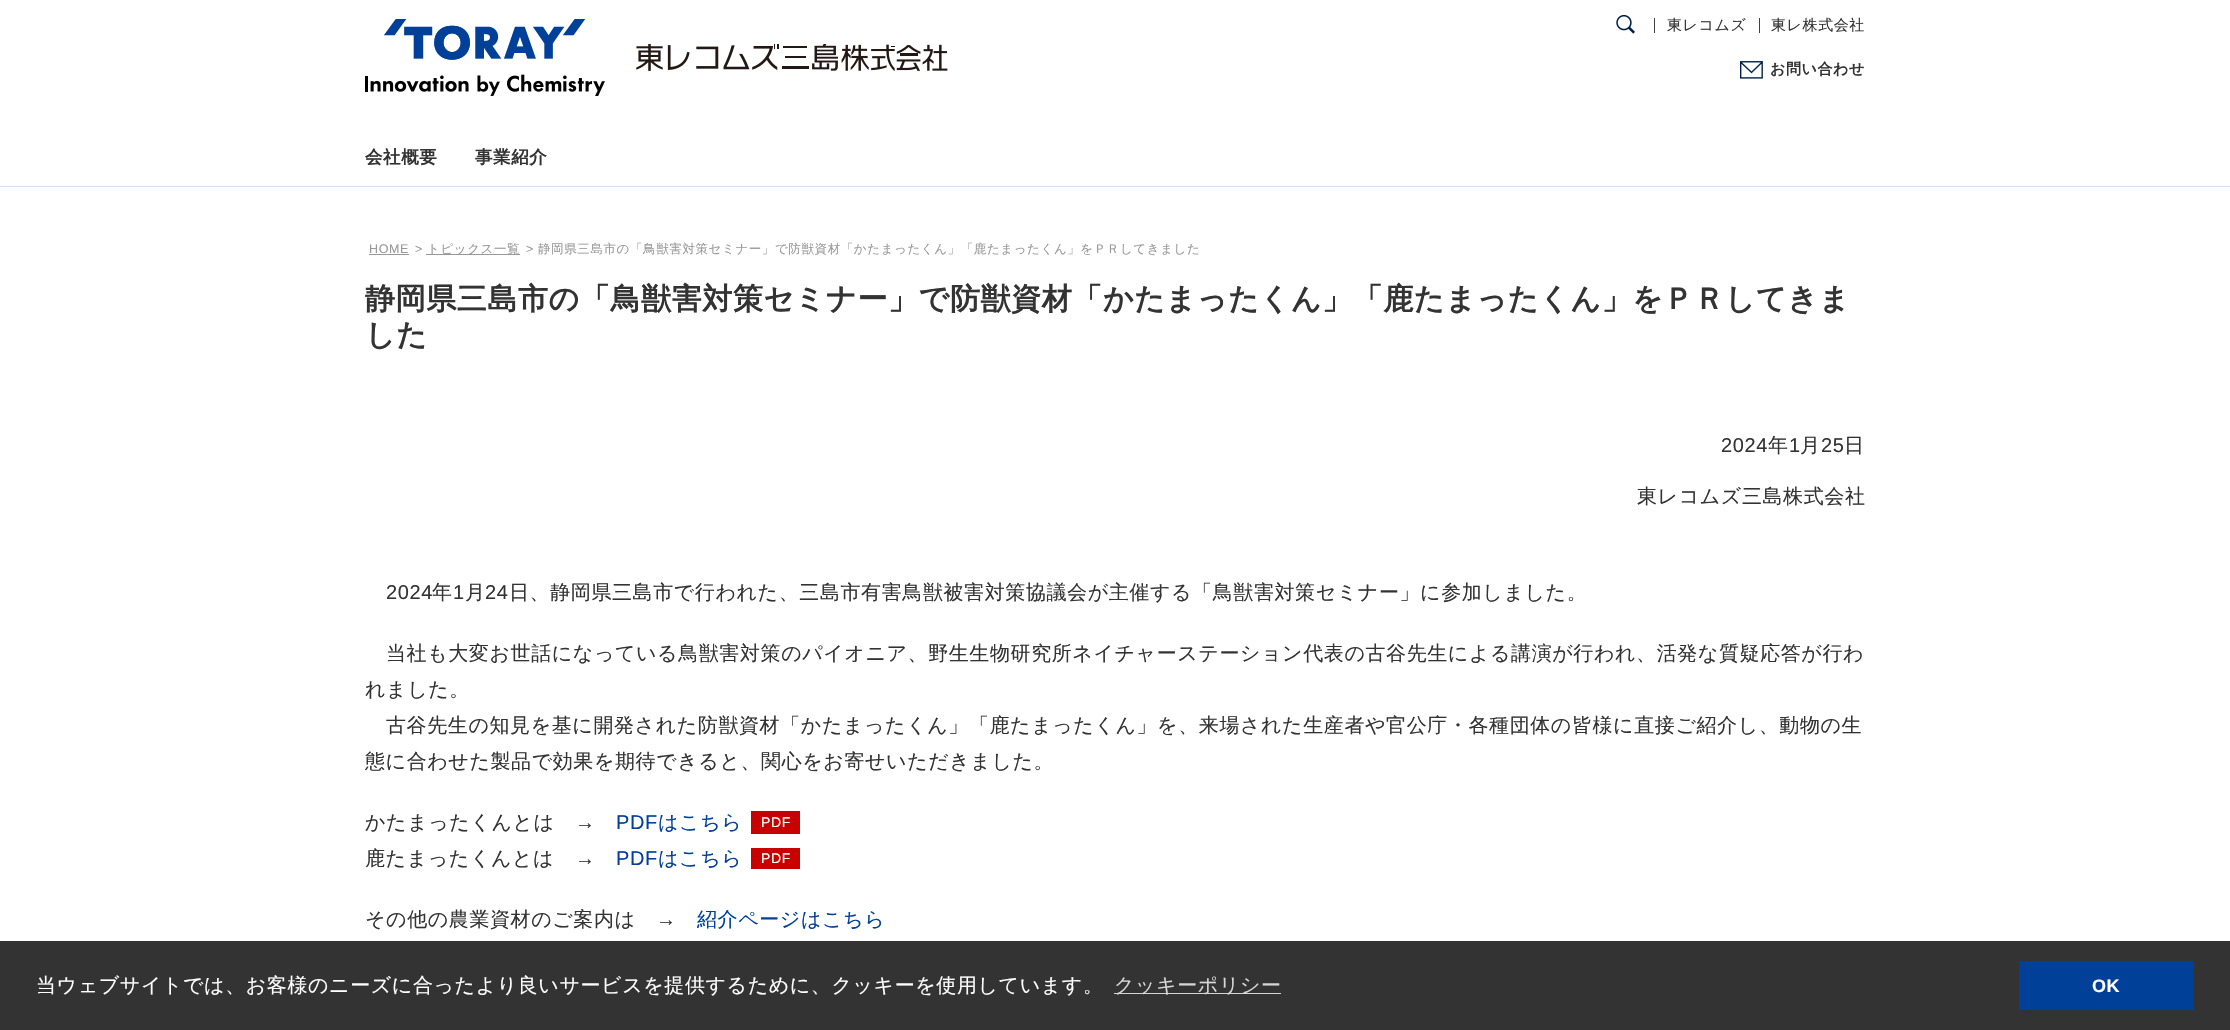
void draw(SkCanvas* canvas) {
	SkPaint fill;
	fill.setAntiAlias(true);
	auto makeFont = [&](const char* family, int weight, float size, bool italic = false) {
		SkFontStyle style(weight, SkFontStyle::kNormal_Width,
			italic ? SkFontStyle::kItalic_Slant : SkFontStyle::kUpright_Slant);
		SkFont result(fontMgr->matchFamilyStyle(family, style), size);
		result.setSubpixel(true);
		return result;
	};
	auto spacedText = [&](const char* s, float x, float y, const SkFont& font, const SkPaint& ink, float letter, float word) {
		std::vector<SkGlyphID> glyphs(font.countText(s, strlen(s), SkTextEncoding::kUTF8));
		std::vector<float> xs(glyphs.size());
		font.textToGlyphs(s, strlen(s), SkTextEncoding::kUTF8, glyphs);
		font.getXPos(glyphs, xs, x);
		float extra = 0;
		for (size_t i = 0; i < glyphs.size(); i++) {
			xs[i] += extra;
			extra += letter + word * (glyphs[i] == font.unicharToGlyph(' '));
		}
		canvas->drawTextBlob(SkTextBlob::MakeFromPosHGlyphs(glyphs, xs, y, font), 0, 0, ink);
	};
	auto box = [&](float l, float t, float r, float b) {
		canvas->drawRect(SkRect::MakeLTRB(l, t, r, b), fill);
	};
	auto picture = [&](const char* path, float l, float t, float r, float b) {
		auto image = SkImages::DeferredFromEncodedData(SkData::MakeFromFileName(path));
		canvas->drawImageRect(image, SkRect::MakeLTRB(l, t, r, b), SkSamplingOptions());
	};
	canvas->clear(0xFFFFFFFF);
	picture("image0.png", 365, 19, 605, 96);
	picture("image1.png", 636, 44, 948, 71);
	picture("image2.png", 1616, 14, 1635, 34);
	fill.setColor(0xFF404040);
	box(1654, 18, 1655, 33);
	box(1759, 18, 1760, 33);
	picture("image3.png", 1740, 61, 1763, 79);
	fill.setColor(0xFFD6E1F0);
	box(0, 186, 2230, 187);
	fill.setColor(0xFF999999);
	box(369, 254, 409, 255);
	box(426, 254, 520, 255);
	fill.setColor(0xFFC90000);
	box(751, 811, 800, 834);
	box(751, 848, 800, 869);
	fill.setColor(0xFF333333);
	box(0, 941, 2230, 1030);
	fill.setColor(0xFFD6D6D6);
	box(1114, 993, 1281, 994);
	fill.setColor(0xFF014099);
	box(2019, 961, 2194, 1010);
	auto font1 = makeFont("WenQuanYi Zen Hei", 500, 15);
	fill.setColor(0xFF333333);
	spacedText("東レコムズ", 1667, 30, font1, fill, 0.6f, 0);
	spacedText("東レ株式会社", 1771, 30, font1, fill, 0.6f, 0);
	auto font2 = makeFont("WenQuanYi Zen Hei", 700, 15);
	spacedText("お問い合わせ", 1770, 74, font2, fill, 0.6f, 0);
	auto font3 = makeFont("WenQuanYi Zen Hei", 700, 17.5f);
	spacedText("会社概要", 365, 163, font3, fill, 0.6f, 0);
	spacedText("事業紹介", 475, 163, font3, fill, 0.6f, 0);
	auto font4 = makeFont("Liberation Sans", 400, 12.5f);
	fill.setColor(0xFF999999);
	spacedText("HOME", 369, 253, font4, fill, 0.6f, 0);
	spacedText(">", 415, 253, font4, fill, 0.6f, 0);
	auto font5 = makeFont("WenQuanYi Zen Hei", 500, 12.5f);
	spacedText("トピックス一覧", 427, 253, font5, fill, 0.6f, 0);
	spacedText(">", 526, 253, font4, fill, 0.6f, 0);
	spacedText("静岡県三島市の「鳥獣害対策セミナー」で防獣資材「かたまったくん」「鹿たまったくん」をＰＲしてきました", 538, 253, font5, fill, 0.6f, 0);
	auto font6 = makeFont("WenQuanYi Zen Hei", 700, 30);
	fill.setColor(0xFF333333);
	spacedText("静岡県三島市の「鳥獣害対策セミナー」で防獣資材「かたまったくん」「鹿たまったくん」をＰＲしてきま", 365, 309, font6, fill, 0.6f, 0);
	spacedText("した", 365, 345, font6, fill, 0.6f, 0);
	auto font7 = makeFont("Liberation Sans", 400, 20);
	spacedText("2024", 1721, 452, font7, fill, 0.6f, 0);
	auto font8 = makeFont("WenQuanYi Zen Hei", 500, 20);
	spacedText("年", 1768, 452, font8, fill, 0.6f, 0);
	spacedText("1", 1789, 452, font7, fill, 0.6f, 0);
	spacedText("月", 1800, 452, font8, fill, 0.6f, 0);
	spacedText("25", 1821, 452, font7, fill, 0.6f, 0);
	spacedText("日", 1844, 452, font8, fill, 0.6f, 0);
	spacedText("東レコムズ三島株式会社", 1637, 503, font8, fill, 0.6f, 0);
	spacedText("2024", 386, 599, font7, fill, 0.6f, 0);
	spacedText("年", 432, 599, font8, fill, 0.6f, 0);
	spacedText("1", 453, 599, font7, fill, 0.6f, 0);
	spacedText("月", 465, 599, font8, fill, 0.6f, 0);
	spacedText("24", 485, 599, font7, fill, 0.6f, 0);
	spacedText("日、静岡県三島市で行われた、三島市有害鳥獣被害対策協議会が主催する「鳥獣害対策セミナー」に参加しました。", 509, 599, font8, fill, 0.6f, 0);
	spacedText("当社も大変お世話になっている鳥獣害対策のパイオニア、野生生物研究所ネイチャーステーション代表の古谷先生による講演が行われ、活発な質疑応答が行わ", 386, 660, font8, fill, 0.6f, 0);
	spacedText("れました。", 365, 696, font8, fill, 0.6f, 0);
	spacedText("古谷先生の知見を基に開発された防獣資材「かたまったくん」「鹿たまったくん」を、来場された生産者や官公庁・各種団体の皆様に直接ご紹介し、動物の生", 386, 732, font8, fill, 0.6f, 0);
	spacedText("態に合わせた製品で効果を期待できると、関心をお寄せいただきました。", 365, 768, font8, fill, 0.6f, 0);
	spacedText("かたまったくんとは", 365, 829, font8, fill, 0.6f, 0);
	spacedText("→", 575, 829, font7, fill, 0.6f, 0);
	fill.setColor(0xFF014099);
	spacedText("PDF", 616, 829, font7, fill, 0.6f, 0);
	spacedText("はこちら", 658, 829, font8, fill, 0.6f, 0);
	auto font9 = makeFont("Liberation Sans", 400, 14);
	fill.setColor(0xFFFFFFFF);
	spacedText("PDF", 761, 827, font9, fill, 0.6f, 0);
	fill.setColor(0xFF333333);
	spacedText("鹿たまったくんとは", 365, 865, font8, fill, 0.6f, 0);
	spacedText("→", 575, 865, font7, fill, 0.6f, 0);
	fill.setColor(0xFF014099);
	spacedText("PDF", 616, 865, font7, fill, 0.6f, 0);
	spacedText("はこちら", 658, 865, font8, fill, 0.6f, 0);
	fill.setColor(0xFFFFFFFF);
	spacedText("PDF", 761, 863, font9, fill, 0.6f, 0);
	fill.setColor(0xFF333333);
	spacedText("その他の農業資材のご案内は", 365, 926, font8, fill, 0.6f, 0);
	spacedText("→", 656, 926, font7, fill, 0.6f, 0);
	fill.setColor(0xFF014099);
	spacedText("紹介ページはこちら", 697, 926, font8, fill, 0.6f, 0);
	fill.setColor(0xFFFFFFFF);
	spacedText("当ウェブサイトでは、お客様のニーズに合ったより良いサービスを提供するために、クッキーを使用しています。", 36, 992, font8, fill, 0.6f, 0);
	fill.setColor(0xFFD6D6D6);
	spacedText("クッキーポリシー", 1114, 992, font8, fill, 0.6f, 0);
	auto font10 = makeFont("Liberation Sans", 700, 18);
	fill.setColor(0xFFFFFFFF);
	spacedText("OK", 2092, 992, font10, fill, 0.6f, 0);
}
